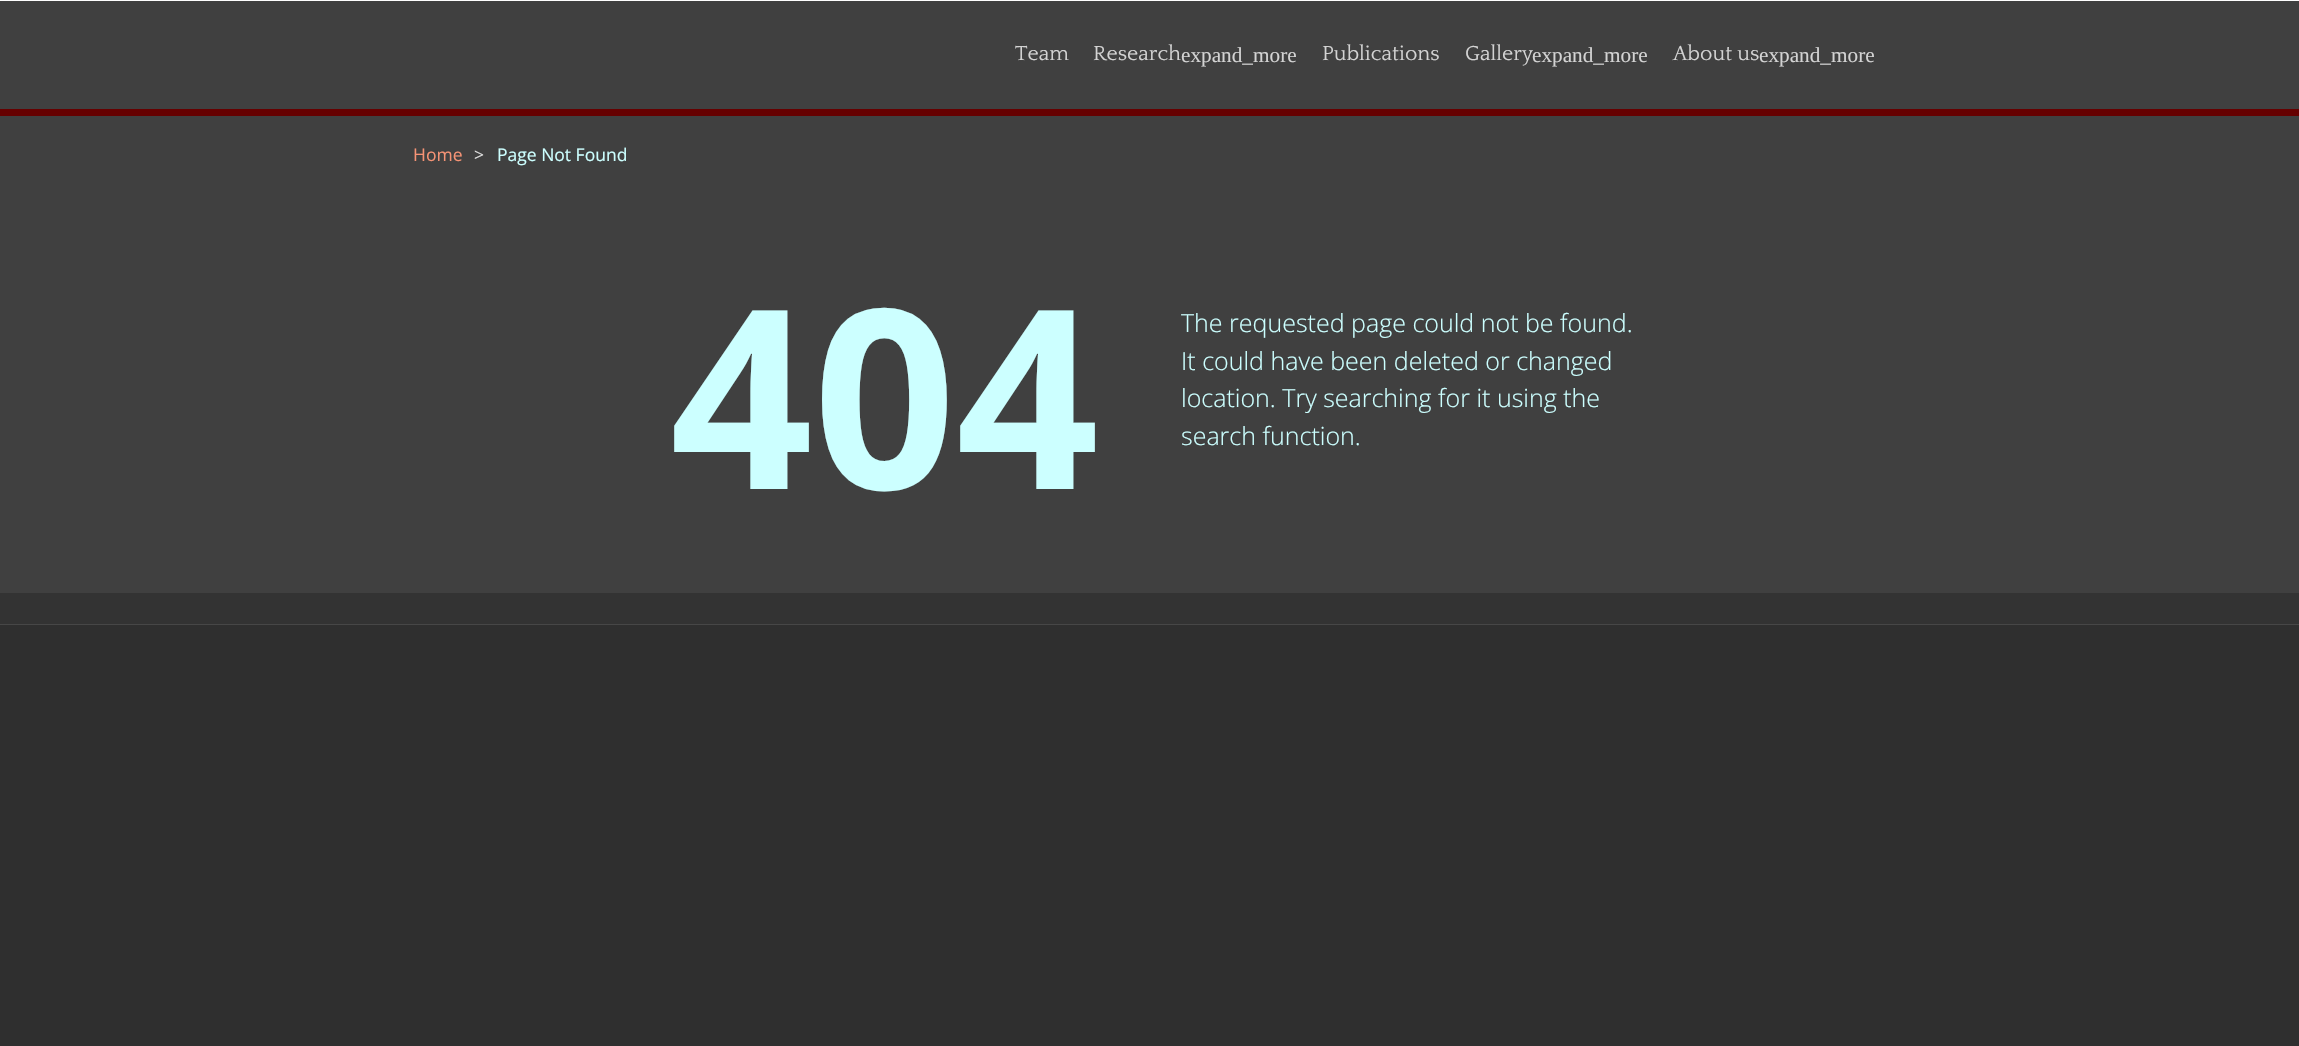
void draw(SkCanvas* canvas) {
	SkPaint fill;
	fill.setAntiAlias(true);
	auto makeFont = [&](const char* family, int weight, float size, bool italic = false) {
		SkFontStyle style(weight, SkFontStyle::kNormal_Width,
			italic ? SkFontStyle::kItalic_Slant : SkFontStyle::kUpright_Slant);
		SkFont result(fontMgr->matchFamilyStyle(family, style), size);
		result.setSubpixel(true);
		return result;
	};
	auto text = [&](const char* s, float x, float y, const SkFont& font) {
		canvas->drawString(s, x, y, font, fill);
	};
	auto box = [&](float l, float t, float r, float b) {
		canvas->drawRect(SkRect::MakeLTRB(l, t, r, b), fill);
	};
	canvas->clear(0xFF404040);
	fill.setColor(0xFFFFFFFF);
	box(0, 0, 2299, 1);
	fill.setColor(0xFF660000);
	box(0, 109, 2299, 116);
	fill.setColor(0xFF333333);
	box(0, 593, 2299, 624);
	fill.setColor(0xFF474747);
	box(0, 624, 2299, 625);
	fill.setColor(0xFF2F2F2F);
	box(0, 625, 2299, 1046);
	auto font1 = makeFont("Quattrocento", 400, 21.25f);
	fill.setColor(0xFFD3D3D3);
	text("Team", 1015, 60, font1);
	text("Research", 1093, 60, font1);
	auto font2 = makeFont("Liberation Serif", 400, 21.25f);
	text("expand_more", 1181, 62, font2);
	text("Publications", 1322, 60, font1);
	text("Gallery", 1465, 60, font1);
	text("expand_more", 1532, 62, font2);
	text("About us", 1673, 60, font1);
	text("expand_more", 1759, 62, font2);
	auto font3 = makeFont("Open Sans", 400, 17.5f);
	fill.setColor(0xFFF59375);
	text("Home", 413, 161, font3);
	fill.setColor(0xFFDDDDDD);
	text(">", 474, 161, font3);
	fill.setColor(0xFFCCFFFF);
	text("Page Not Found", 497, 161, font3);
	auto font4 = makeFont("Open Sans", 700, 250);
	text("404", 670, 489, font4);
	auto font5 = makeFont("Open Sans", 300, 25);
	text("The requested page could not be found.", 1181, 332, font5);
	text("It could have been deleted or changed", 1181, 370, font5);
	text("location. Try searching for it using the", 1181, 407, font5);
	text("search function.", 1181, 445, font5);
}
